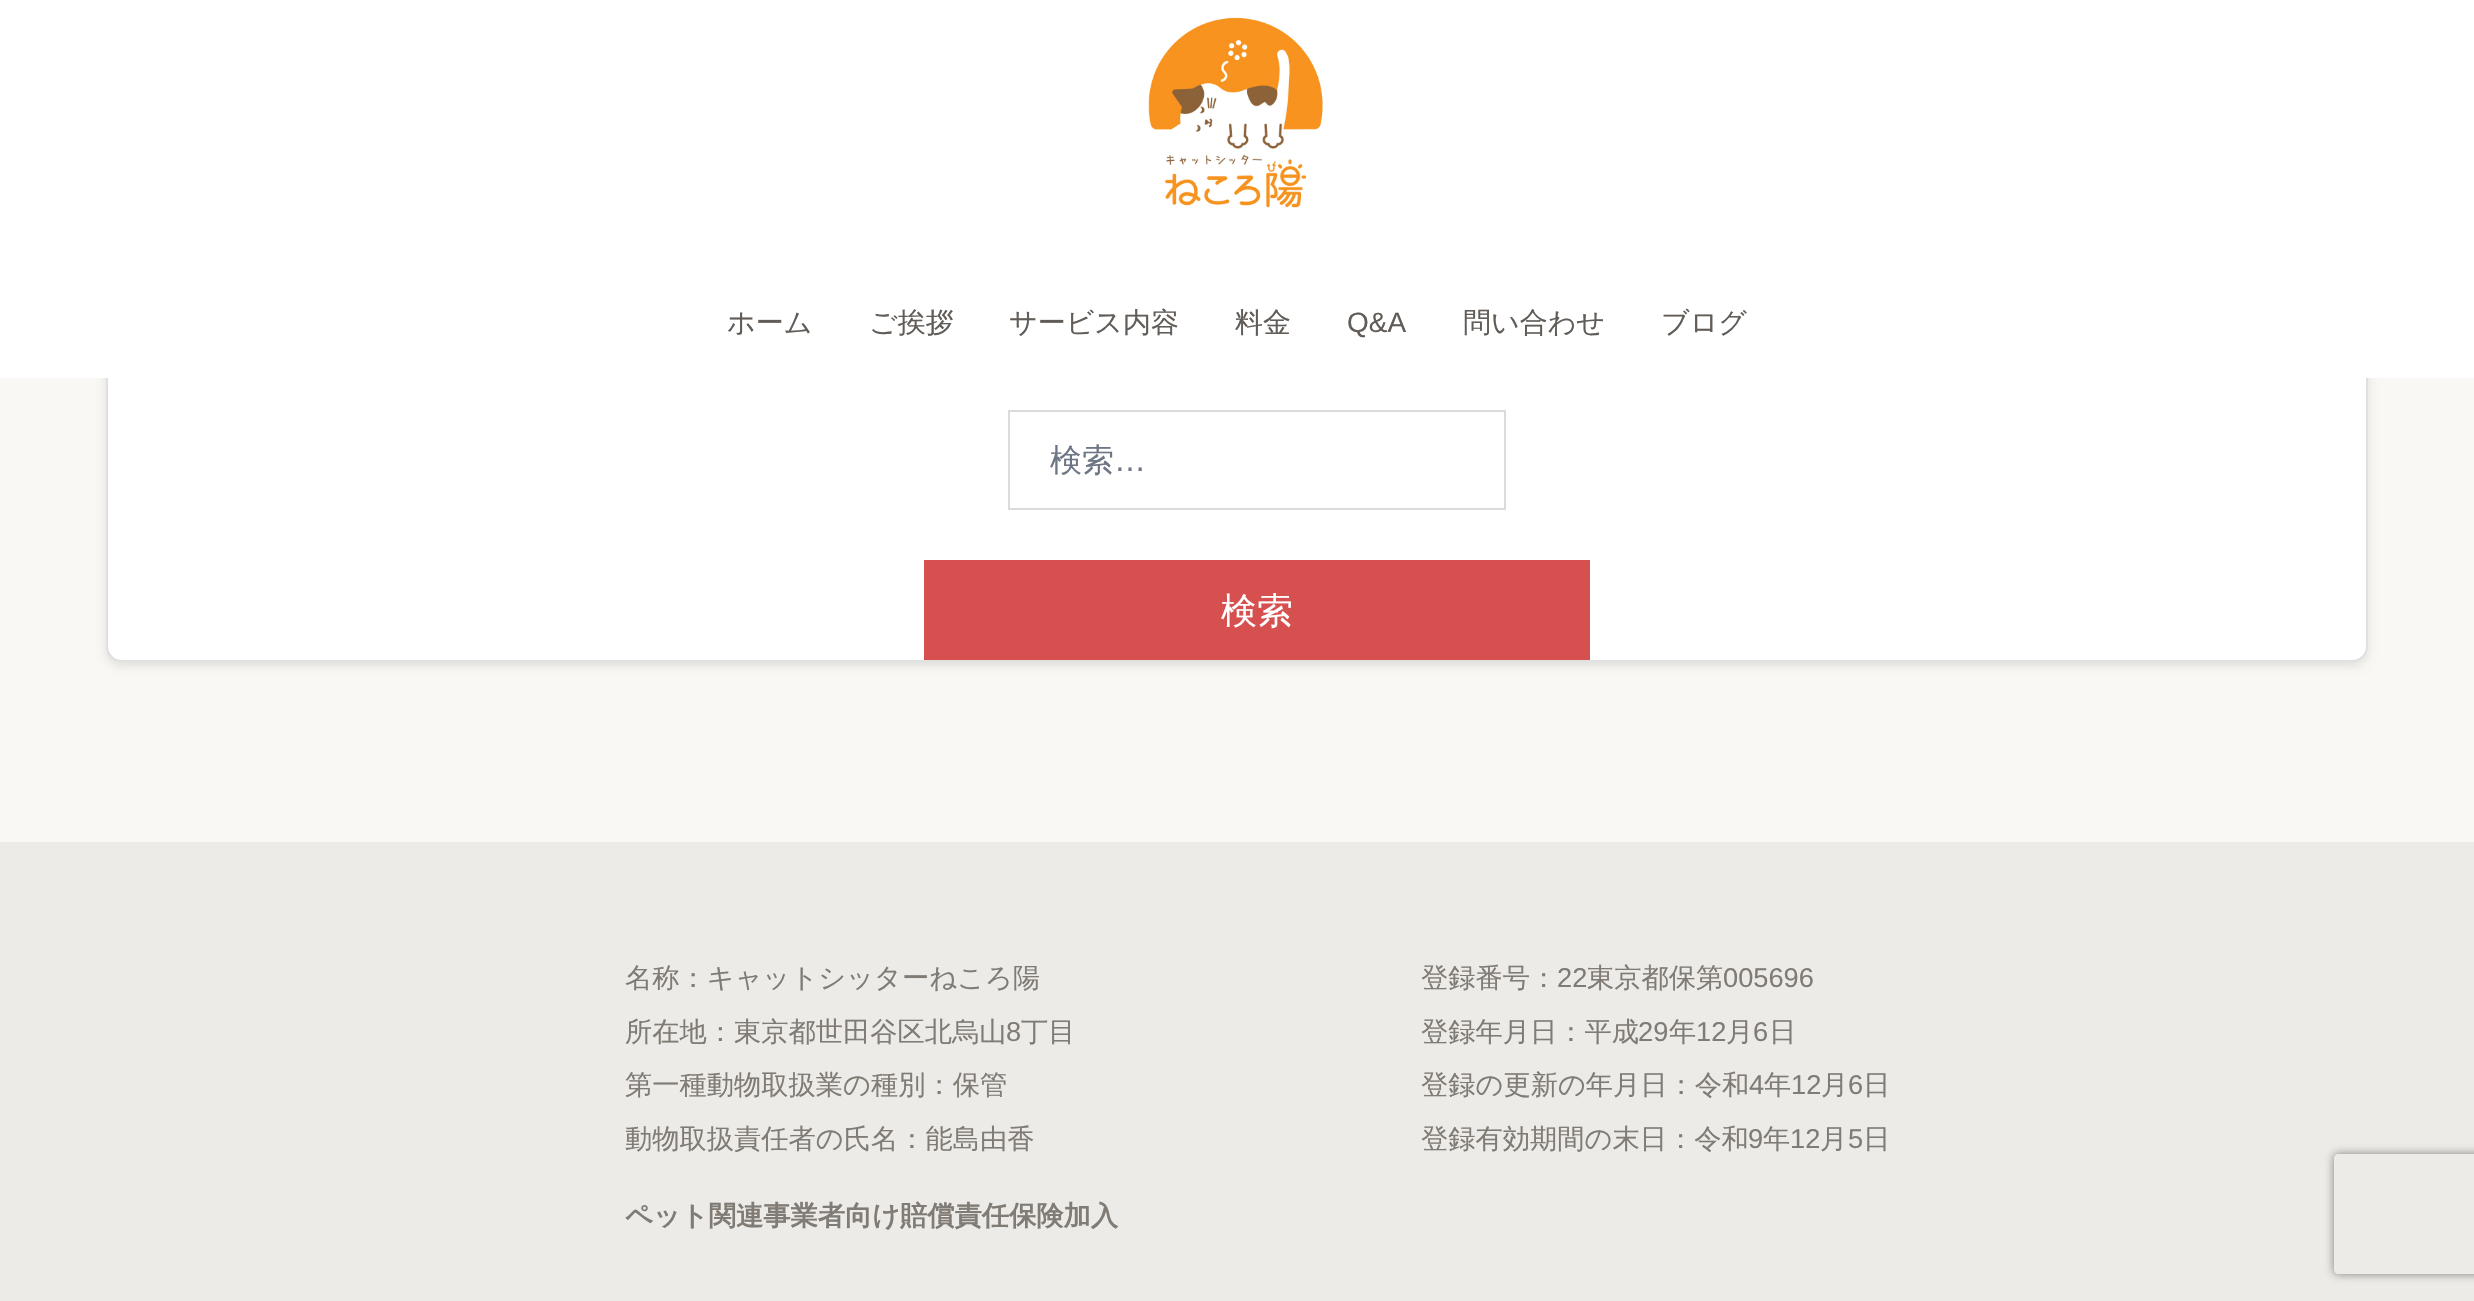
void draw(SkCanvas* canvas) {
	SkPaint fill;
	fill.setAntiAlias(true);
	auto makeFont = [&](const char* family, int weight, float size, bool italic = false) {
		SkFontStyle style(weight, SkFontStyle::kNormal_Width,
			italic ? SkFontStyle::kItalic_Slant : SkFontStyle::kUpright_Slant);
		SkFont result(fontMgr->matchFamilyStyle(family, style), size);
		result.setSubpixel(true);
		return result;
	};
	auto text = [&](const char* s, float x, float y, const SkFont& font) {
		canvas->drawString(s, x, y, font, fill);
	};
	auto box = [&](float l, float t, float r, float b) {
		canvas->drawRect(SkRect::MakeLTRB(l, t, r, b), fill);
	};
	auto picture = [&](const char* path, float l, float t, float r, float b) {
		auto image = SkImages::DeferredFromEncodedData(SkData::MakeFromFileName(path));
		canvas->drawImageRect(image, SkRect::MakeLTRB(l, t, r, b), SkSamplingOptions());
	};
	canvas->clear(0xFFF9F8F4);
	fill.setColor(0x1A000000);
	fill.setMaskFilter(SkMaskFilter::MakeBlur(kNormal_SkBlurStyle, 5));
	canvas->drawRoundRect(SkRect::MakeLTRB(106, 116, 2368, 666), 16, 16, fill);
	fill.setMaskFilter(nullptr);
	fill.setColor(0xFFFFFFFF);
	canvas->drawRoundRect(SkRect::MakeLTRB(107, 113, 2367, 661), 15, 15, fill);
	fill.setStyle(SkPaint::kStroke_Style);
	fill.setStrokeWidth(2);
	fill.setColor(0xFFE0E0E0);
	canvas->drawRoundRect(SkRect::MakeLTRB(107, 113, 2367, 661), 15, 15, fill);
	fill.setStyle(SkPaint::kFill_Style);
	fill.setColor(0xFFFFFFFF);
	box(0, 0, 2474, 378);
	picture("image0.png", 1148, 17, 1323, 208);
	fill.setStyle(SkPaint::kStroke_Style);
	fill.setColor(0xFFDBDBDB);
	canvas->drawRect(SkRect::MakeLTRB(1009, 411, 1505, 509), fill);
	fill.setStyle(SkPaint::kFill_Style);
	fill.setColor(0xFFD65050);
	box(924, 560, 1590, 660);
	fill.setColor(0xFFECEBE7);
	box(0, 842, 2474, 1301);
	canvas->save();
	canvas->clipPath(SkPathBuilder(SkPathFillType::kEvenOdd).moveTo(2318, 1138).lineTo(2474, 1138).lineTo(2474, 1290).lineTo(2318, 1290).close().moveTo(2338, 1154).lineTo(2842, 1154).cubicTo(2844, 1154, 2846, 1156, 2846, 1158).lineTo(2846, 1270).cubicTo(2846, 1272, 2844, 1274, 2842, 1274).lineTo(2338, 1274).cubicTo(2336, 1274, 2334, 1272, 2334, 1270).lineTo(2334, 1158).cubicTo(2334, 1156, 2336, 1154, 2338, 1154).close().detach(), true);
	fill.setColor(0xFF808080);
	fill.setMaskFilter(SkMaskFilter::MakeBlur(kNormal_SkBlurStyle, 5));
	canvas->drawRoundRect(SkRect::MakeLTRB(2334, 1154, 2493, 1274), 4, 4, fill);
	fill.setMaskFilter(nullptr);
	canvas->restore();
	auto font1 = makeFont("WenQuanYi Zen Hei", 500, 28);
	fill.setColor(0xFF615C57);
	text("ホーム", 727, 332, font1);
	text("ご挨拶", 869, 332, font1);
	text("サービス内容", 1009, 332, font1);
	text("料金", 1235, 332, font1);
	auto font2 = makeFont("Liberation Sans", 400, 28);
	text("Q&A", 1347, 332, font2);
	text("問い合わせ", 1463, 332, font1);
	text("ブログ", 1661, 332, font1);
	auto font3 = makeFont("WenQuanYi Zen Hei", 500, 32);
	fill.setColor(0xFF6D7685);
	text("検索", 1050, 471, font3);
	auto font4 = makeFont("Liberation Sans", 400, 32);
	text("…", 1114, 471, font4);
	auto font5 = makeFont("WenQuanYi Zen Hei", 500, 36);
	fill.setColor(0xFFFFFFFF);
	text("検索", 1221, 623, font5);
	auto font6 = makeFont("WenQuanYi Zen Hei", 500, 27.25f);
	fill.setColor(0xFF807B74);
	text("名称：キャットシッターねころ陽", 625, 987, font6);
	text("所在地：東京都世田谷区北烏山", 625, 1041, font6);
	auto font7 = makeFont("Liberation Sans", 400, 27.25f);
	text("8", 1006, 1041, font7);
	text("丁目", 1021, 1041, font6);
	text("第一種動物取扱業の種別：保管", 625, 1094, font6);
	text("動物取扱責任者の氏名：能島由香", 625, 1148, font6);
	text("登録番号：", 1421, 987, font6);
	text("22", 1557, 987, font7);
	text("東京都保第", 1587, 987, font6);
	text("005696", 1723, 987, font7);
	text("登録年月日：平成", 1421, 1041, font6);
	text("29", 1638, 1041, font7);
	text("年", 1669, 1041, font6);
	text("12", 1696, 1041, font7);
	text("月", 1726, 1041, font6);
	text("6", 1753, 1041, font7);
	text("日", 1769, 1041, font6);
	text("登録の更新の年月日：令和", 1421, 1094, font6);
	text("4", 1749, 1094, font7);
	text("年", 1764, 1094, font6);
	text("12", 1791, 1094, font7);
	text("月", 1821, 1094, font6);
	text("6", 1848, 1094, font7);
	text("日", 1863, 1094, font6);
	text("登録有効期間の末日：令和", 1421, 1148, font6);
	text("9", 1748, 1148, font7);
	text("年", 1763, 1148, font6);
	text("12", 1790, 1148, font7);
	text("月", 1820, 1148, font6);
	text("5", 1848, 1148, font7);
	text("日", 1863, 1148, font6);
	auto font8 = makeFont("WenQuanYi Zen Hei", 700, 27.25f);
	text("ペット関連事業者向け賠償責任保険加入", 625, 1225, font8);
}
